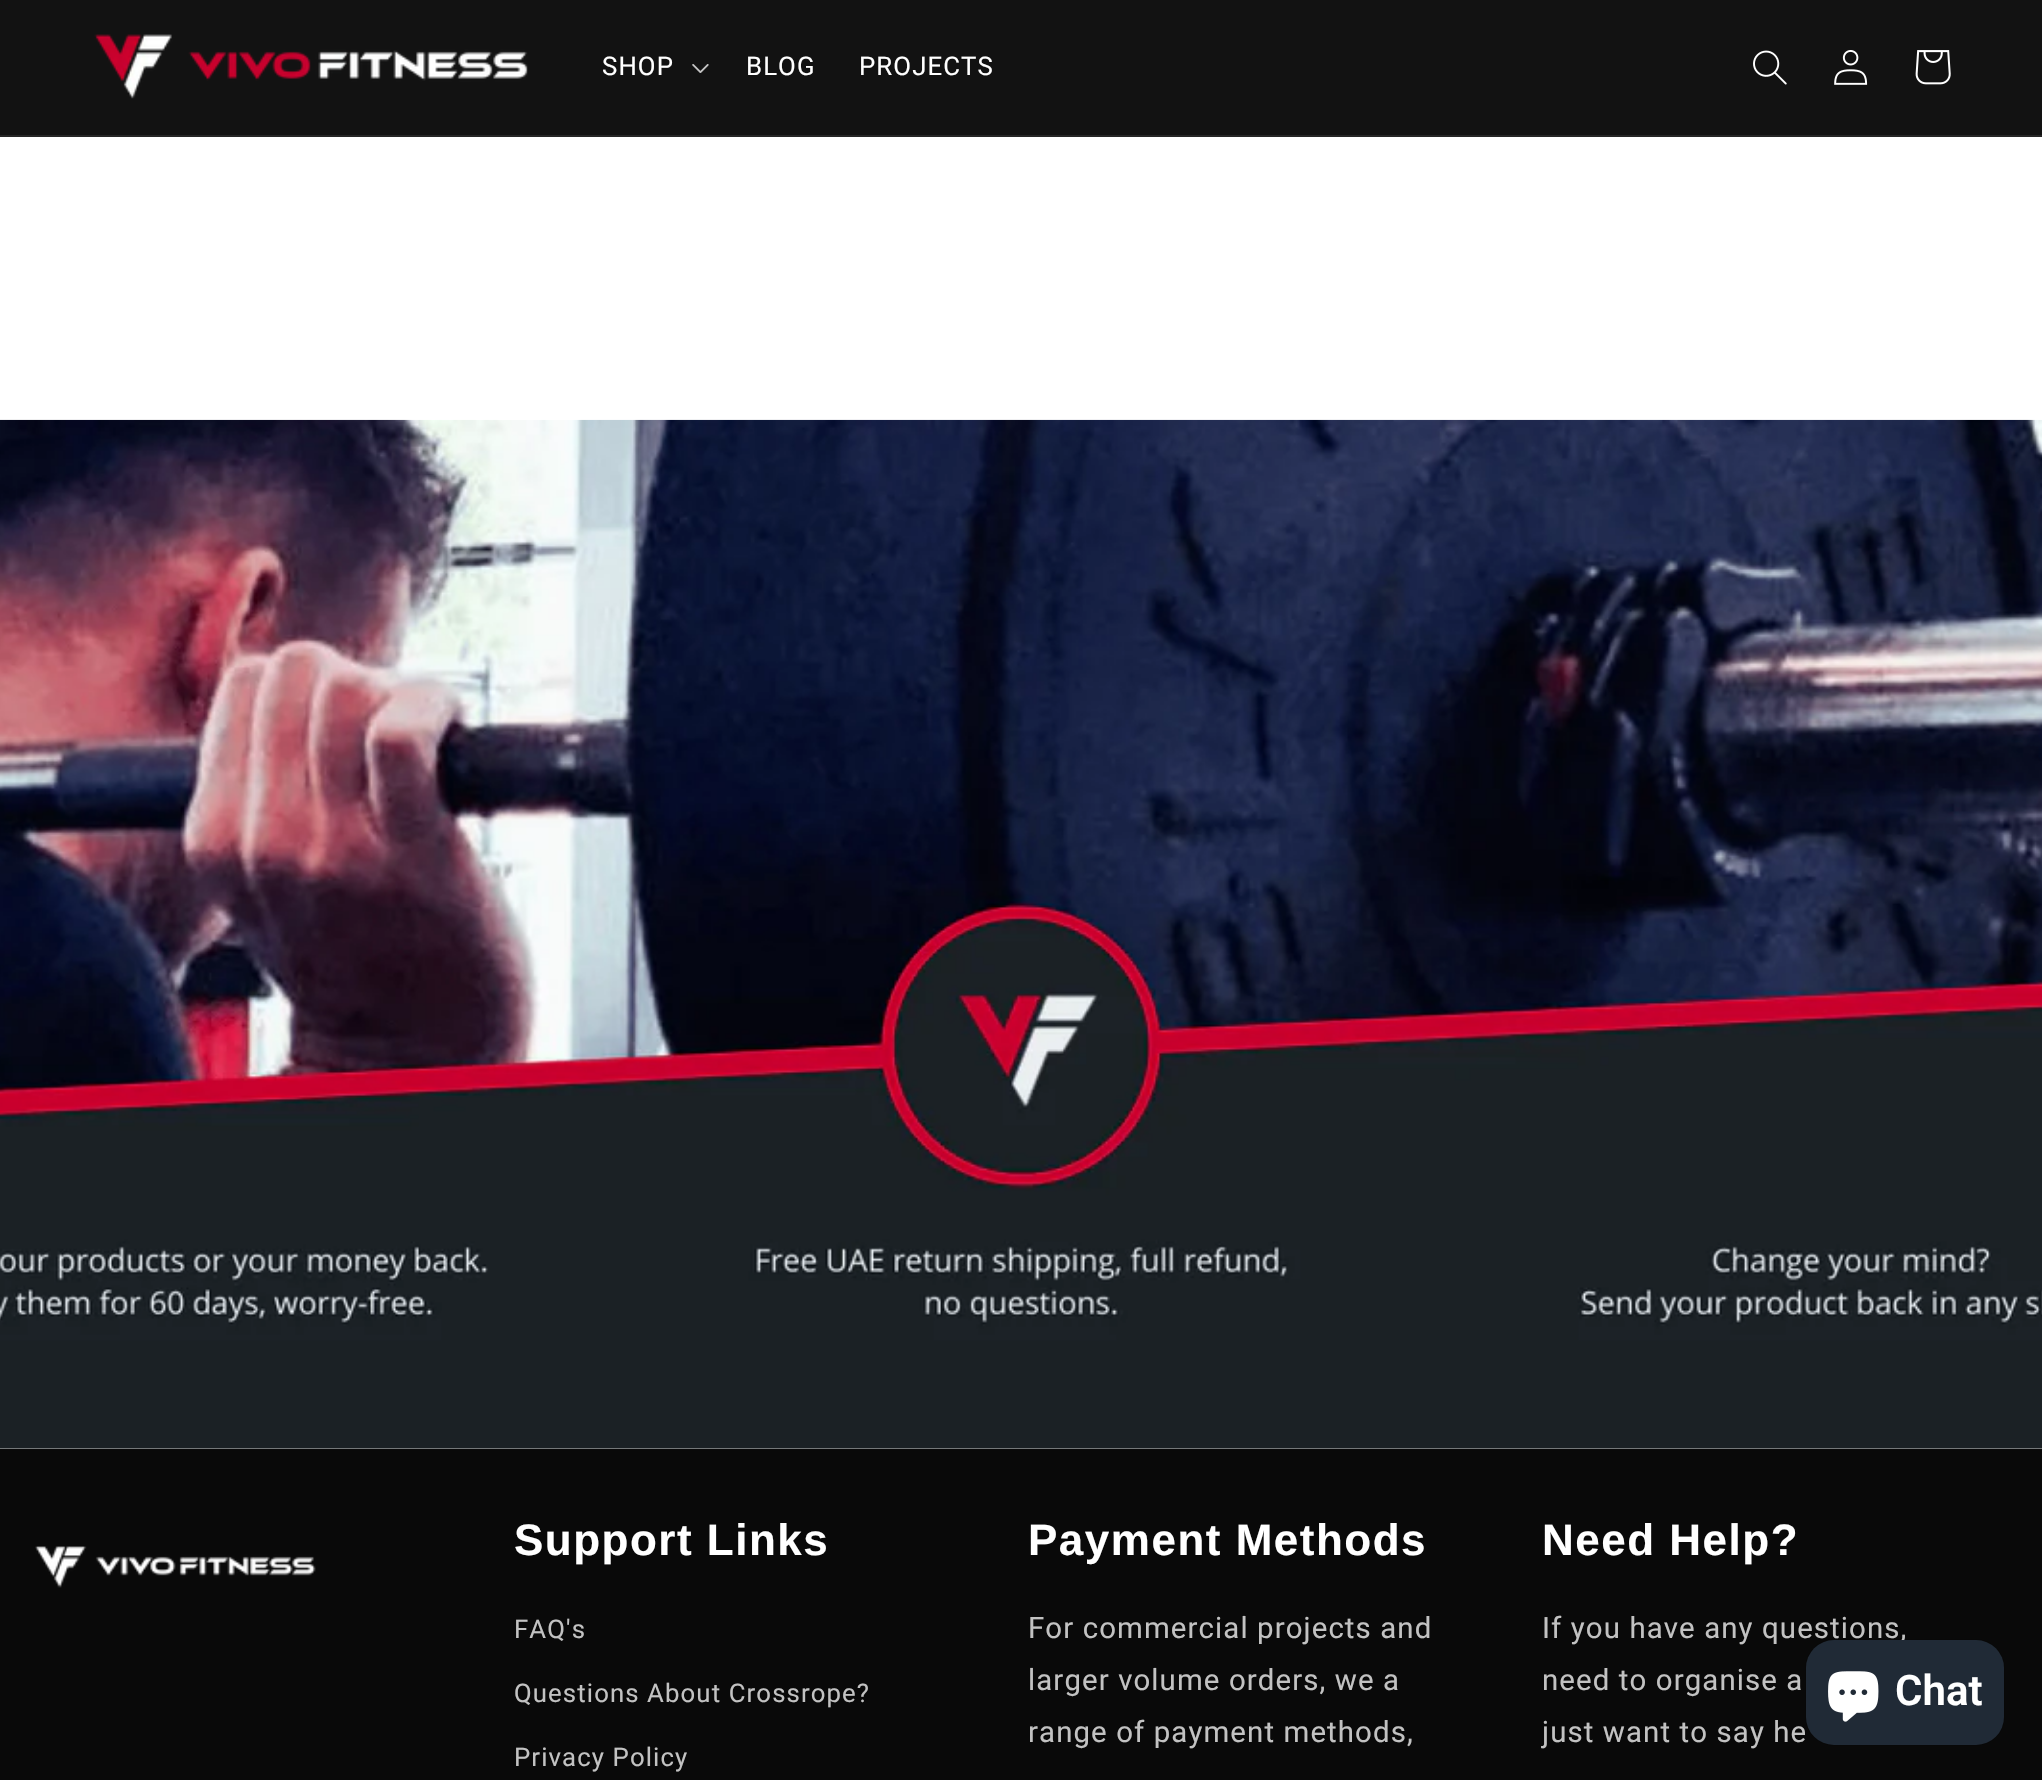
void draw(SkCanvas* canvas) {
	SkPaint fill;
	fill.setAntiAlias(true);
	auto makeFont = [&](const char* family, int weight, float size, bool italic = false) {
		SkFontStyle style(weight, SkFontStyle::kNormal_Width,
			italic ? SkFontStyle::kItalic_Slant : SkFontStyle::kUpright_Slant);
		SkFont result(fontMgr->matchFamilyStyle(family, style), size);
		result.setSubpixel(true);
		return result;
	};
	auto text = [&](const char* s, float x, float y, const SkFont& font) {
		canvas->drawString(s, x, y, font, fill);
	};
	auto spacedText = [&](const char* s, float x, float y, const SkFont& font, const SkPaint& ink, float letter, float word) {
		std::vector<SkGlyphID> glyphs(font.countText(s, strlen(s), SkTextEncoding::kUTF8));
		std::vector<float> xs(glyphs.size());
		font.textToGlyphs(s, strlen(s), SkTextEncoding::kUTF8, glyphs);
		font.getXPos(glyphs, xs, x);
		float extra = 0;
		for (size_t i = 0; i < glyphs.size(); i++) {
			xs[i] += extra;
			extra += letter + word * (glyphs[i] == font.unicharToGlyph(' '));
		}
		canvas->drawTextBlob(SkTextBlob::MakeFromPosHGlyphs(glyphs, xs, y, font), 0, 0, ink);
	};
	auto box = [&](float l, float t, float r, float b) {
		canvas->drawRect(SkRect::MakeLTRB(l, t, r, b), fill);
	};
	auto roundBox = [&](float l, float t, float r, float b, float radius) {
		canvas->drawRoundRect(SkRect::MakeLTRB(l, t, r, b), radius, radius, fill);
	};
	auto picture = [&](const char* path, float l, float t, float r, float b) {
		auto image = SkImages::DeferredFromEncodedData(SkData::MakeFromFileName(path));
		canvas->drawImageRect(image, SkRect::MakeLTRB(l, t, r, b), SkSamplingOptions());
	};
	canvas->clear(0xFFFFFFFF);
	fill.setColor(0xFF121212);
	box(0, 0, 2042, 135);
	fill.setColor(0xFF252525);
	box(0, 135, 2042, 137);
	picture("image0.png", 94, 34, 528, 99);
	picture("image1.png", 692, 64, 709, 73);
	picture("image2.png", 1753, 50, 1787, 85);
	picture("image3.png", 1834, 50, 1868, 85);
	picture("image4.png", 1915, 50, 1951, 85);
	fill.setColor(0xFFE7E7E7);
	box(0, 1448, 2042, 1449);
	picture("image5.png", 0, 419, 2042, 1449);
	fill.setColor(0xFF090909);
	box(0, 1449, 2042, 1780);
	picture("image6.png", 35, 1546, 316, 1588);
	fill.setColor(0x26000000);
	fill.setMaskFilter(SkMaskFilter::MakeBlur(kNormal_SkBlurStyle, 4.5f));
	canvas->drawRoundRect(SkRect::MakeLTRB(1806, 1640, 2004, 1745), 28, 28, fill);
	fill.setMaskFilter(nullptr);
	auto font1 = makeFont("Roboto", 400, 25.75f);
	fill.setColor(0xFFFFFFFF);
	spacedText("SHOP", 602, 75, font1, fill, 1.1f, 0);
	spacedText("BLOG", 746, 75, font1, fill, 1.1f, 0);
	spacedText("PROJECTS", 859, 75, font1, fill, 1.1f, 0);
	auto font2 = makeFont("Liberation Sans", 700, 44);
	spacedText("Support Links", 514, 1555, font2, fill, 1.5f, 0);
	fill.setColor(0xFFC2C2C2);
	spacedText("FAQ's", 514, 1638, font1, fill, 1.1f, 0);
	spacedText("Questions About Crossrope?", 514, 1702, font1, fill, 1.1f, 0);
	spacedText("Privacy Policy", 514, 1766, font1, fill, 1.1f, 0);
	fill.setColor(0xFFFFFFFF);
	spacedText("Payment Methods", 1028, 1555, font2, fill, 1.5f, 0);
	auto font3 = makeFont("Roboto", 400, 29.4f);
	fill.setColor(0xFFC2C2C2);
	spacedText("For commercial projects and", 1028, 1638, font3, fill, 1.1f, 0);
	spacedText("larger volume orders, we a", 1028, 1690, font3, fill, 1.1f, 0);
	spacedText("range of payment methods,", 1028, 1742, font3, fill, 1.1f, 0);
	fill.setColor(0xFFFFFFFF);
	spacedText("Need Help?", 1542, 1555, font2, fill, 1.5f, 0);
	fill.setColor(0xFFC2C2C2);
	spacedText("If you have any questions,", 1542, 1638, font3, fill, 1.1f, 0);
	spacedText("need to organise a", 1542, 1690, font3, fill, 1.1f, 0);
	spacedText("just want to say he", 1542, 1742, font3, fill, 1.1f, 0);
	fill.setColor(0xFF202A36);
	roundBox(1806, 1640, 2004, 1745, 28);
	picture("image7.png", 1828, 1671, 1879, 1722);
	auto font4 = makeFont("Roboto", 600, 42);
	fill.setColor(0xFFFFFFFF);
	text("Chat", 1895, 1705, font4);
}
